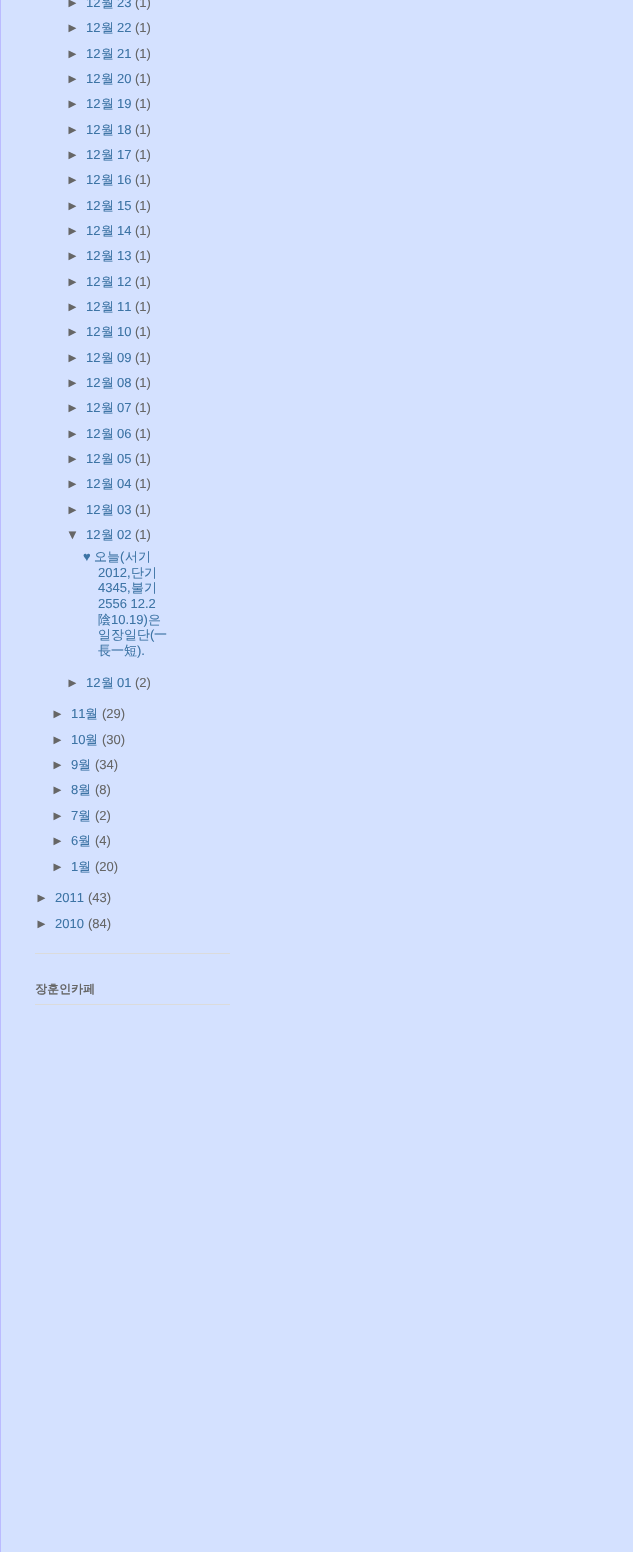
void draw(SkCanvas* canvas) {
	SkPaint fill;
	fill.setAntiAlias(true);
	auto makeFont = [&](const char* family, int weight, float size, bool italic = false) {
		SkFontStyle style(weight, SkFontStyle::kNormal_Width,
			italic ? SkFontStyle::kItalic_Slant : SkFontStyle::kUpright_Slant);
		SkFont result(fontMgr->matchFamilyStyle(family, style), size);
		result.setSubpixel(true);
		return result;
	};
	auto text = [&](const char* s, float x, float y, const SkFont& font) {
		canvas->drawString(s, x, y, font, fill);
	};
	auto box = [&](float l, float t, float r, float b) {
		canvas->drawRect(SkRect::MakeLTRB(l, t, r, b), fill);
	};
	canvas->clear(0xFFD4E1FF);
	fill.setColor(0xFFBBBBFF);
	box(0, 0, 1, 1552);
	fill.setColor(0xFFDBDBDB);
	box(35, 953, 230, 954);
	box(35, 1004, 230, 1005);
	auto font1 = makeFont("Liberation Sans", 400, 13);
	fill.setColor(0xFF666666);
	text("►", 66, 7, font1);
	fill.setColor(0xFF3D74A5);
	text("12", 86, 7, font1);
	auto font2 = makeFont("WenQuanYi Zen Hei", 500, 13);
	text("월", 101, 7, font2);
	text("23", 117, 7, font1);
	fill.setColor(0xFF666666);
	text("(1)", 135, 7, font1);
	text("►", 66, 32, font1);
	fill.setColor(0xFF3D74A5);
	text("12", 86, 32, font1);
	text("월", 101, 32, font2);
	text("22", 117, 32, font1);
	fill.setColor(0xFF666666);
	text("(1)", 135, 32, font1);
	text("►", 66, 58, font1);
	fill.setColor(0xFF3D74A5);
	text("12", 86, 58, font1);
	text("월", 101, 58, font2);
	text("21", 117, 58, font1);
	fill.setColor(0xFF666666);
	text("(1)", 135, 58, font1);
	text("►", 66, 83, font1);
	fill.setColor(0xFF3D74A5);
	text("12", 86, 83, font1);
	text("월", 101, 83, font2);
	text("20", 117, 83, font1);
	fill.setColor(0xFF666666);
	text("(1)", 135, 83, font1);
	text("►", 66, 108, font1);
	fill.setColor(0xFF3D74A5);
	text("12", 86, 108, font1);
	text("월", 101, 108, font2);
	text("19", 117, 108, font1);
	fill.setColor(0xFF666666);
	text("(1)", 135, 108, font1);
	text("►", 66, 134, font1);
	fill.setColor(0xFF3D74A5);
	text("12", 86, 134, font1);
	text("월", 101, 134, font2);
	text("18", 117, 134, font1);
	fill.setColor(0xFF666666);
	text("(1)", 135, 134, font1);
	text("►", 66, 159, font1);
	fill.setColor(0xFF3D74A5);
	text("12", 86, 159, font1);
	text("월", 101, 159, font2);
	text("17", 117, 159, font1);
	fill.setColor(0xFF666666);
	text("(1)", 135, 159, font1);
	text("►", 66, 184, font1);
	fill.setColor(0xFF3D74A5);
	text("12", 86, 184, font1);
	text("월", 101, 184, font2);
	text("16", 117, 184, font1);
	fill.setColor(0xFF666666);
	text("(1)", 135, 184, font1);
	text("►", 66, 210, font1);
	fill.setColor(0xFF3D74A5);
	text("12", 86, 210, font1);
	text("월", 101, 210, font2);
	text("15", 117, 210, font1);
	fill.setColor(0xFF666666);
	text("(1)", 135, 210, font1);
	text("►", 66, 235, font1);
	fill.setColor(0xFF3D74A5);
	text("12", 86, 235, font1);
	text("월", 101, 235, font2);
	text("14", 117, 235, font1);
	fill.setColor(0xFF666666);
	text("(1)", 135, 235, font1);
	text("►", 66, 260, font1);
	fill.setColor(0xFF3D74A5);
	text("12", 86, 260, font1);
	text("월", 101, 260, font2);
	text("13", 117, 260, font1);
	fill.setColor(0xFF666666);
	text("(1)", 135, 260, font1);
	text("►", 66, 286, font1);
	fill.setColor(0xFF3D74A5);
	text("12", 86, 286, font1);
	text("월", 101, 286, font2);
	text("12", 117, 286, font1);
	fill.setColor(0xFF666666);
	text("(1)", 135, 286, font1);
	text("►", 66, 311, font1);
	fill.setColor(0xFF3D74A5);
	text("12", 86, 311, font1);
	text("월", 101, 311, font2);
	text("11", 117, 311, font1);
	fill.setColor(0xFF666666);
	text("(1)", 135, 311, font1);
	text("►", 66, 336, font1);
	fill.setColor(0xFF3D74A5);
	text("12", 86, 336, font1);
	text("월", 101, 336, font2);
	text("10", 117, 336, font1);
	fill.setColor(0xFF666666);
	text("(1)", 135, 336, font1);
	text("►", 66, 362, font1);
	fill.setColor(0xFF3D74A5);
	text("12", 86, 362, font1);
	text("월", 101, 362, font2);
	text("09", 117, 362, font1);
	fill.setColor(0xFF666666);
	text("(1)", 135, 362, font1);
	text("►", 66, 387, font1);
	fill.setColor(0xFF3D74A5);
	text("12", 86, 387, font1);
	text("월", 101, 387, font2);
	text("08", 117, 387, font1);
	fill.setColor(0xFF666666);
	text("(1)", 135, 387, font1);
	text("►", 66, 412, font1);
	fill.setColor(0xFF3D74A5);
	text("12", 86, 412, font1);
	text("월", 101, 412, font2);
	text("07", 117, 412, font1);
	fill.setColor(0xFF666666);
	text("(1)", 135, 412, font1);
	text("►", 66, 438, font1);
	fill.setColor(0xFF3D74A5);
	text("12", 86, 438, font1);
	text("월", 101, 438, font2);
	text("06", 117, 438, font1);
	fill.setColor(0xFF666666);
	text("(1)", 135, 438, font1);
	text("►", 66, 463, font1);
	fill.setColor(0xFF3D74A5);
	text("12", 86, 463, font1);
	text("월", 101, 463, font2);
	text("05", 117, 463, font1);
	fill.setColor(0xFF666666);
	text("(1)", 135, 463, font1);
	text("►", 66, 488, font1);
	fill.setColor(0xFF3D74A5);
	text("12", 86, 488, font1);
	text("월", 101, 488, font2);
	text("04", 117, 488, font1);
	fill.setColor(0xFF666666);
	text("(1)", 135, 488, font1);
	text("►", 66, 514, font1);
	fill.setColor(0xFF3D74A5);
	text("12", 86, 514, font1);
	text("월", 101, 514, font2);
	text("03", 117, 514, font1);
	fill.setColor(0xFF666666);
	text("(1)", 135, 514, font1);
	text("▼", 66, 539, font1);
	fill.setColor(0xFF3D74A5);
	text("12", 86, 539, font1);
	text("월", 101, 539, font2);
	text("02", 117, 539, font1);
	fill.setColor(0xFF666666);
	text("(1)", 135, 539, font1);
	fill.setColor(0xFF3D74A5);
	text("♥", 83, 561, font1);
	text("오늘", 94, 561, font2);
	text("(", 120, 561, font1);
	text("서기", 125, 561, font2);
	text("2012,", 98, 577, font1);
	text("단기", 131, 577, font2);
	text("4345,", 98, 592, font1);
	text("불기", 131, 592, font2);
	text("2556 12.2", 98, 608, font1);
	text("陰", 98, 624, font2);
	text("10.19)", 111, 624, font1);
	text("은", 148, 624, font2);
	text("일장일단", 98, 639, font2);
	text("(", 150, 639, font1);
	text("一", 154, 639, font2);
	text("長一短", 98, 655, font2);
	text(").", 137, 655, font1);
	fill.setColor(0xFF666666);
	text("►", 66, 687, font1);
	fill.setColor(0xFF3D74A5);
	text("12", 86, 687, font1);
	text("월", 101, 687, font2);
	text("01", 117, 687, font1);
	fill.setColor(0xFF666666);
	text("(2)", 135, 687, font1);
	text("►", 51, 718, font1);
	fill.setColor(0xFF3D74A5);
	text("11", 71, 718, font1);
	text("월", 85, 718, font2);
	fill.setColor(0xFF666666);
	text("(29)", 102, 718, font1);
	text("►", 51, 744, font1);
	fill.setColor(0xFF3D74A5);
	text("10", 71, 744, font1);
	text("월", 85, 744, font2);
	fill.setColor(0xFF666666);
	text("(30)", 102, 744, font1);
	text("►", 51, 769, font1);
	fill.setColor(0xFF3D74A5);
	text("9", 71, 769, font1);
	text("월", 78, 769, font2);
	fill.setColor(0xFF666666);
	text("(34)", 95, 769, font1);
	text("►", 51, 794, font1);
	fill.setColor(0xFF3D74A5);
	text("8", 71, 794, font1);
	text("월", 78, 794, font2);
	fill.setColor(0xFF666666);
	text("(8)", 95, 794, font1);
	text("►", 51, 820, font1);
	fill.setColor(0xFF3D74A5);
	text("7", 71, 820, font1);
	text("월", 78, 820, font2);
	fill.setColor(0xFF666666);
	text("(2)", 95, 820, font1);
	text("►", 51, 845, font1);
	fill.setColor(0xFF3D74A5);
	text("6", 71, 845, font1);
	text("월", 78, 845, font2);
	fill.setColor(0xFF666666);
	text("(4)", 95, 845, font1);
	text("►", 51, 871, font1);
	fill.setColor(0xFF3D74A5);
	text("1", 71, 871, font1);
	text("월", 78, 871, font2);
	fill.setColor(0xFF666666);
	text("(20)", 95, 871, font1);
	text("►", 35, 902, font1);
	fill.setColor(0xFF3D74A5);
	text("2011", 55, 902, font1);
	fill.setColor(0xFF666666);
	text("(43)", 88, 902, font1);
	text("►", 35, 928, font1);
	fill.setColor(0xFF3D74A5);
	text("2010", 55, 928, font1);
	fill.setColor(0xFF666666);
	text("(84)", 88, 928, font1);
	auto font3 = makeFont("WenQuanYi Zen Hei", 700, 12);
	text("장훈인카페", 35, 993, font3);
}
